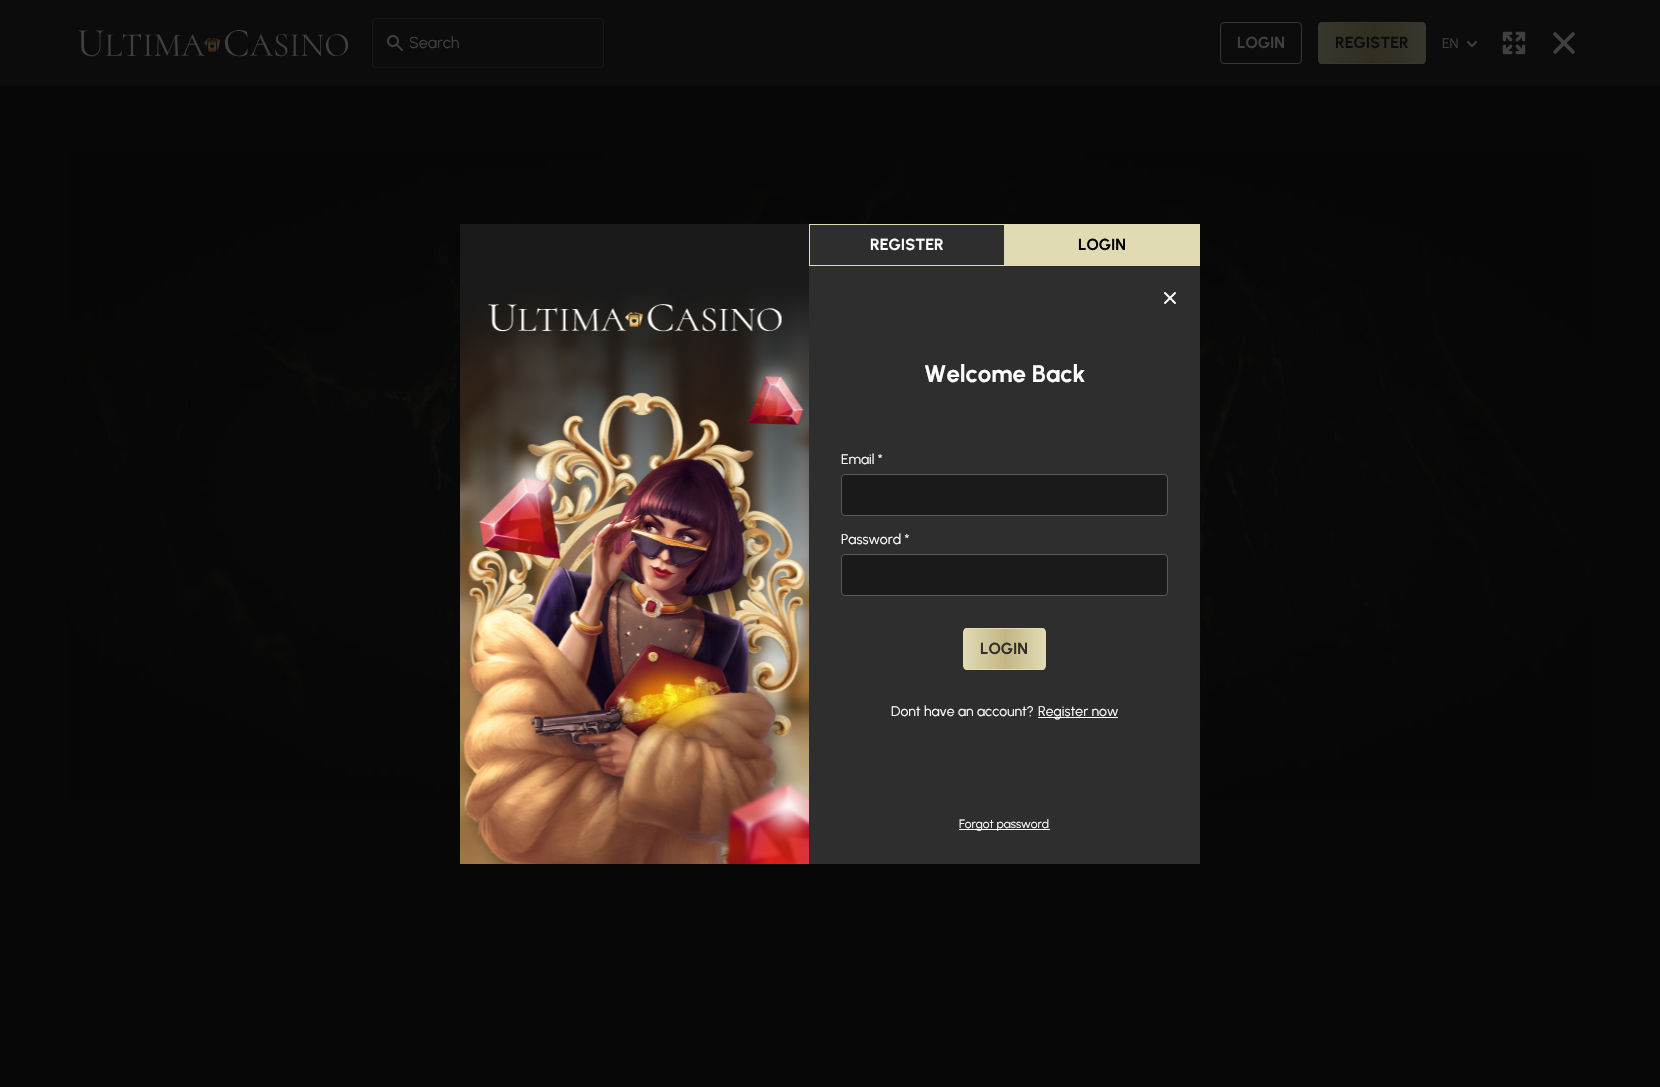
void draw(SkCanvas* canvas) {
	SkPaint fill;
	fill.setAntiAlias(true);
	auto makeFont = [&](const char* family, int weight, float size, bool italic = false) {
		SkFontStyle style(weight, SkFontStyle::kNormal_Width,
			italic ? SkFontStyle::kItalic_Slant : SkFontStyle::kUpright_Slant);
		SkFont result(fontMgr->matchFamilyStyle(family, style), size);
		result.setSubpixel(true);
		return result;
	};
	auto text = [&](const char* s, float x, float y, const SkFont& font) {
		canvas->drawString(s, x, y, font, fill);
	};
	auto box = [&](float l, float t, float r, float b) {
		canvas->drawRect(SkRect::MakeLTRB(l, t, r, b), fill);
	};
	auto picture = [&](const char* path, float l, float t, float r, float b) {
		auto image = SkImages::DeferredFromEncodedData(SkData::MakeFromFileName(path));
		canvas->drawImageRect(image, SkRect::MakeLTRB(l, t, r, b), SkSamplingOptions());
	};
	canvas->clear(0xFF070707);
	picture("image0.png", 66, 153, 1591, 803);
	fill.setColor(0xFF0C0C0C);
	box(0, 0, 1660, 86);
	picture("image1.png", 78, 30, 348, 57);
	fill.setStyle(SkPaint::kStroke_Style);
	fill.setStrokeWidth(1);
	fill.setColor(0xFF161616);
	canvas->drawRoundRect(SkRect::MakeLTRB(372.5f, 18.5f, 603.5f, 67.5f), 3.5f, 3.5f, fill);
	picture("image2.png", 387, 35, 403, 51);
	fill.setColor(0xFF38372D);
	canvas->drawRoundRect(SkRect::MakeLTRB(1220.5f, 22.5f, 1301.5f, 63.5f), 3.5f, 3.5f, fill);
	canvas->save();
	canvas->clipPath(SkPathBuilder().moveTo(1322, 22).lineTo(1422, 22).cubicTo(1424, 22, 1426, 24, 1426, 26).lineTo(1426, 60).cubicTo(1426, 62, 1424, 64, 1422, 64).lineTo(1322, 64).cubicTo(1320, 64, 1318, 62, 1318, 60).lineTo(1318, 26).cubicTo(1318, 24, 1320, 22, 1322, 22).close().detach(), true);
	fill.setStyle(SkPaint::kFill_Style);
	{
		const SkColor colors[] = {0xFF38372D, 0xFF312E21, 0xFF38372D};
		const float stops[] = {0, 0.49f, 1};
		const SkPoint ends[] = {{1425, 43}, {1319, 43}};
		fill.setShader(SkGradientShader::MakeLinear(ends, colors, stops, 3, SkTileMode::kClamp));
		fill.setAlpha(255);
	}
	box(1319, 22, 1425, 64);
	canvas->restore();
	fill.setStyle(SkPaint::kStroke_Style);
	fill.setShader(nullptr);
	fill.setColor(0xFF38372D);
	canvas->drawRoundRect(SkRect::MakeLTRB(1318.5f, 22.5f, 1425.5f, 63.5f), 3.5f, 3.5f, fill);
	picture("image3.png", 1467, 41, 1477, 47);
	picture("image4.png", 1502, 31, 1526, 55);
	picture("image5.png", 1553, 32, 1575, 54);
	fill.setStyle(SkPaint::kFill_Style);
	fill.setColor(0xFF2E2E2E);
	box(809, 225, 1200, 864);
	picture("image6.png", 460, 224, 809, 864);
	fill.setStyle(SkPaint::kStroke_Style);
	fill.setColor(0xFFE0DBB3);
	canvas->drawRect(SkRect::MakeLTRB(809.5f, 224.5f, 1004.5f, 265.5f), fill);
	fill.setStyle(SkPaint::kFill_Style);
	box(1005, 224, 1200, 266);
	fill.setColor(0xFF1A1A1A);
	canvas->drawRoundRect(SkRect::MakeLTRB(841.5f, 474.5f, 1167.5f, 515.5f), 3.5f, 3.5f, fill);
	fill.setStyle(SkPaint::kStroke_Style);
	fill.setColor(0xFF595959);
	canvas->drawRoundRect(SkRect::MakeLTRB(841.5f, 474.5f, 1167.5f, 515.5f), 3.5f, 3.5f, fill);
	fill.setStyle(SkPaint::kFill_Style);
	fill.setColor(0xFF1A1A1A);
	canvas->drawRoundRect(SkRect::MakeLTRB(841.5f, 554.5f, 1167.5f, 595.5f), 3.5f, 3.5f, fill);
	fill.setStyle(SkPaint::kStroke_Style);
	fill.setColor(0xFF595959);
	canvas->drawRoundRect(SkRect::MakeLTRB(841.5f, 554.5f, 1167.5f, 595.5f), 3.5f, 3.5f, fill);
	canvas->save();
	canvas->clipPath(SkPathBuilder().moveTo(967, 628).lineTo(1042, 628).cubicTo(1044, 628, 1046, 630, 1046, 632).lineTo(1046, 666).cubicTo(1046, 668, 1044, 670, 1042, 670).lineTo(967, 670).cubicTo(965, 670, 963, 668, 963, 666).lineTo(963, 632).cubicTo(963, 630, 965, 628, 967, 628).close().detach(), true);
	fill.setStyle(SkPaint::kFill_Style);
	{
		const SkColor colors[] = {0xFFE0DBB3, 0xFFC4B684, 0xFFE0DBB3};
		const float stops[] = {0, 0.49f, 1};
		const SkPoint ends[] = {{1045, 649}, {964, 649}};
		fill.setShader(SkGradientShader::MakeLinear(ends, colors, stops, 3, SkTileMode::kClamp));
		fill.setAlpha(255);
	}
	box(964, 628, 1045, 670);
	canvas->restore();
	fill.setStyle(SkPaint::kStroke_Style);
	fill.setShader(nullptr);
	fill.setColor(0xFFE0DBB3);
	canvas->drawRoundRect(SkRect::MakeLTRB(963.5f, 628.5f, 1045.5f, 669.5f), 3.5f, 3.5f, fill);
	fill.setStyle(SkPaint::kFill_Style);
	fill.setColor(0xFFFFFFFF);
	box(1038, 717, 1118, 718);
	box(959, 829, 1050, 830);
	picture("image7.png", 1164, 292, 1176, 304);
	auto font1 = makeFont("Urbanist", 400, 16);
	fill.setColor(0xFF404040);
	text("Search", 409, 48, font1);
	auto font2 = makeFont("Urbanist", 700, 16);
	text("LOGIN", 1237, 48, font2);
	fill.setColor(0xFF0C0C0C);
	text("REGISTER", 1335, 48, font2);
	auto font3 = makeFont("Urbanist", 400, 14);
	fill.setColor(0xFF404040);
	text("EN", 1442, 48, font3);
	fill.setColor(0xFFFFFFFF);
	text("REGISTER", 870, 250, font2);
	fill.setColor(0xFF000000);
	text("LOGIN", 1078, 250, font2);
	auto font4 = makeFont("Urbanist", 700, 24);
	fill.setColor(0xFFFFFFFF);
	text("Welcome Back", 924, 382, font4);
	text("Email *", 841, 464, font3);
	text("Password *", 841, 544, font3);
	fill.setColor(0xFF2E2E2E);
	text("LOGIN", 980, 654, font2);
	fill.setColor(0xFFFFFFFF);
	text("Dont have an account?", 891, 716, font3);
	text("Register now", 1038, 716, font3);
	auto font5 = makeFont("Urbanist", 400, 12);
	text("Forgot password", 959, 828, font5);
}
